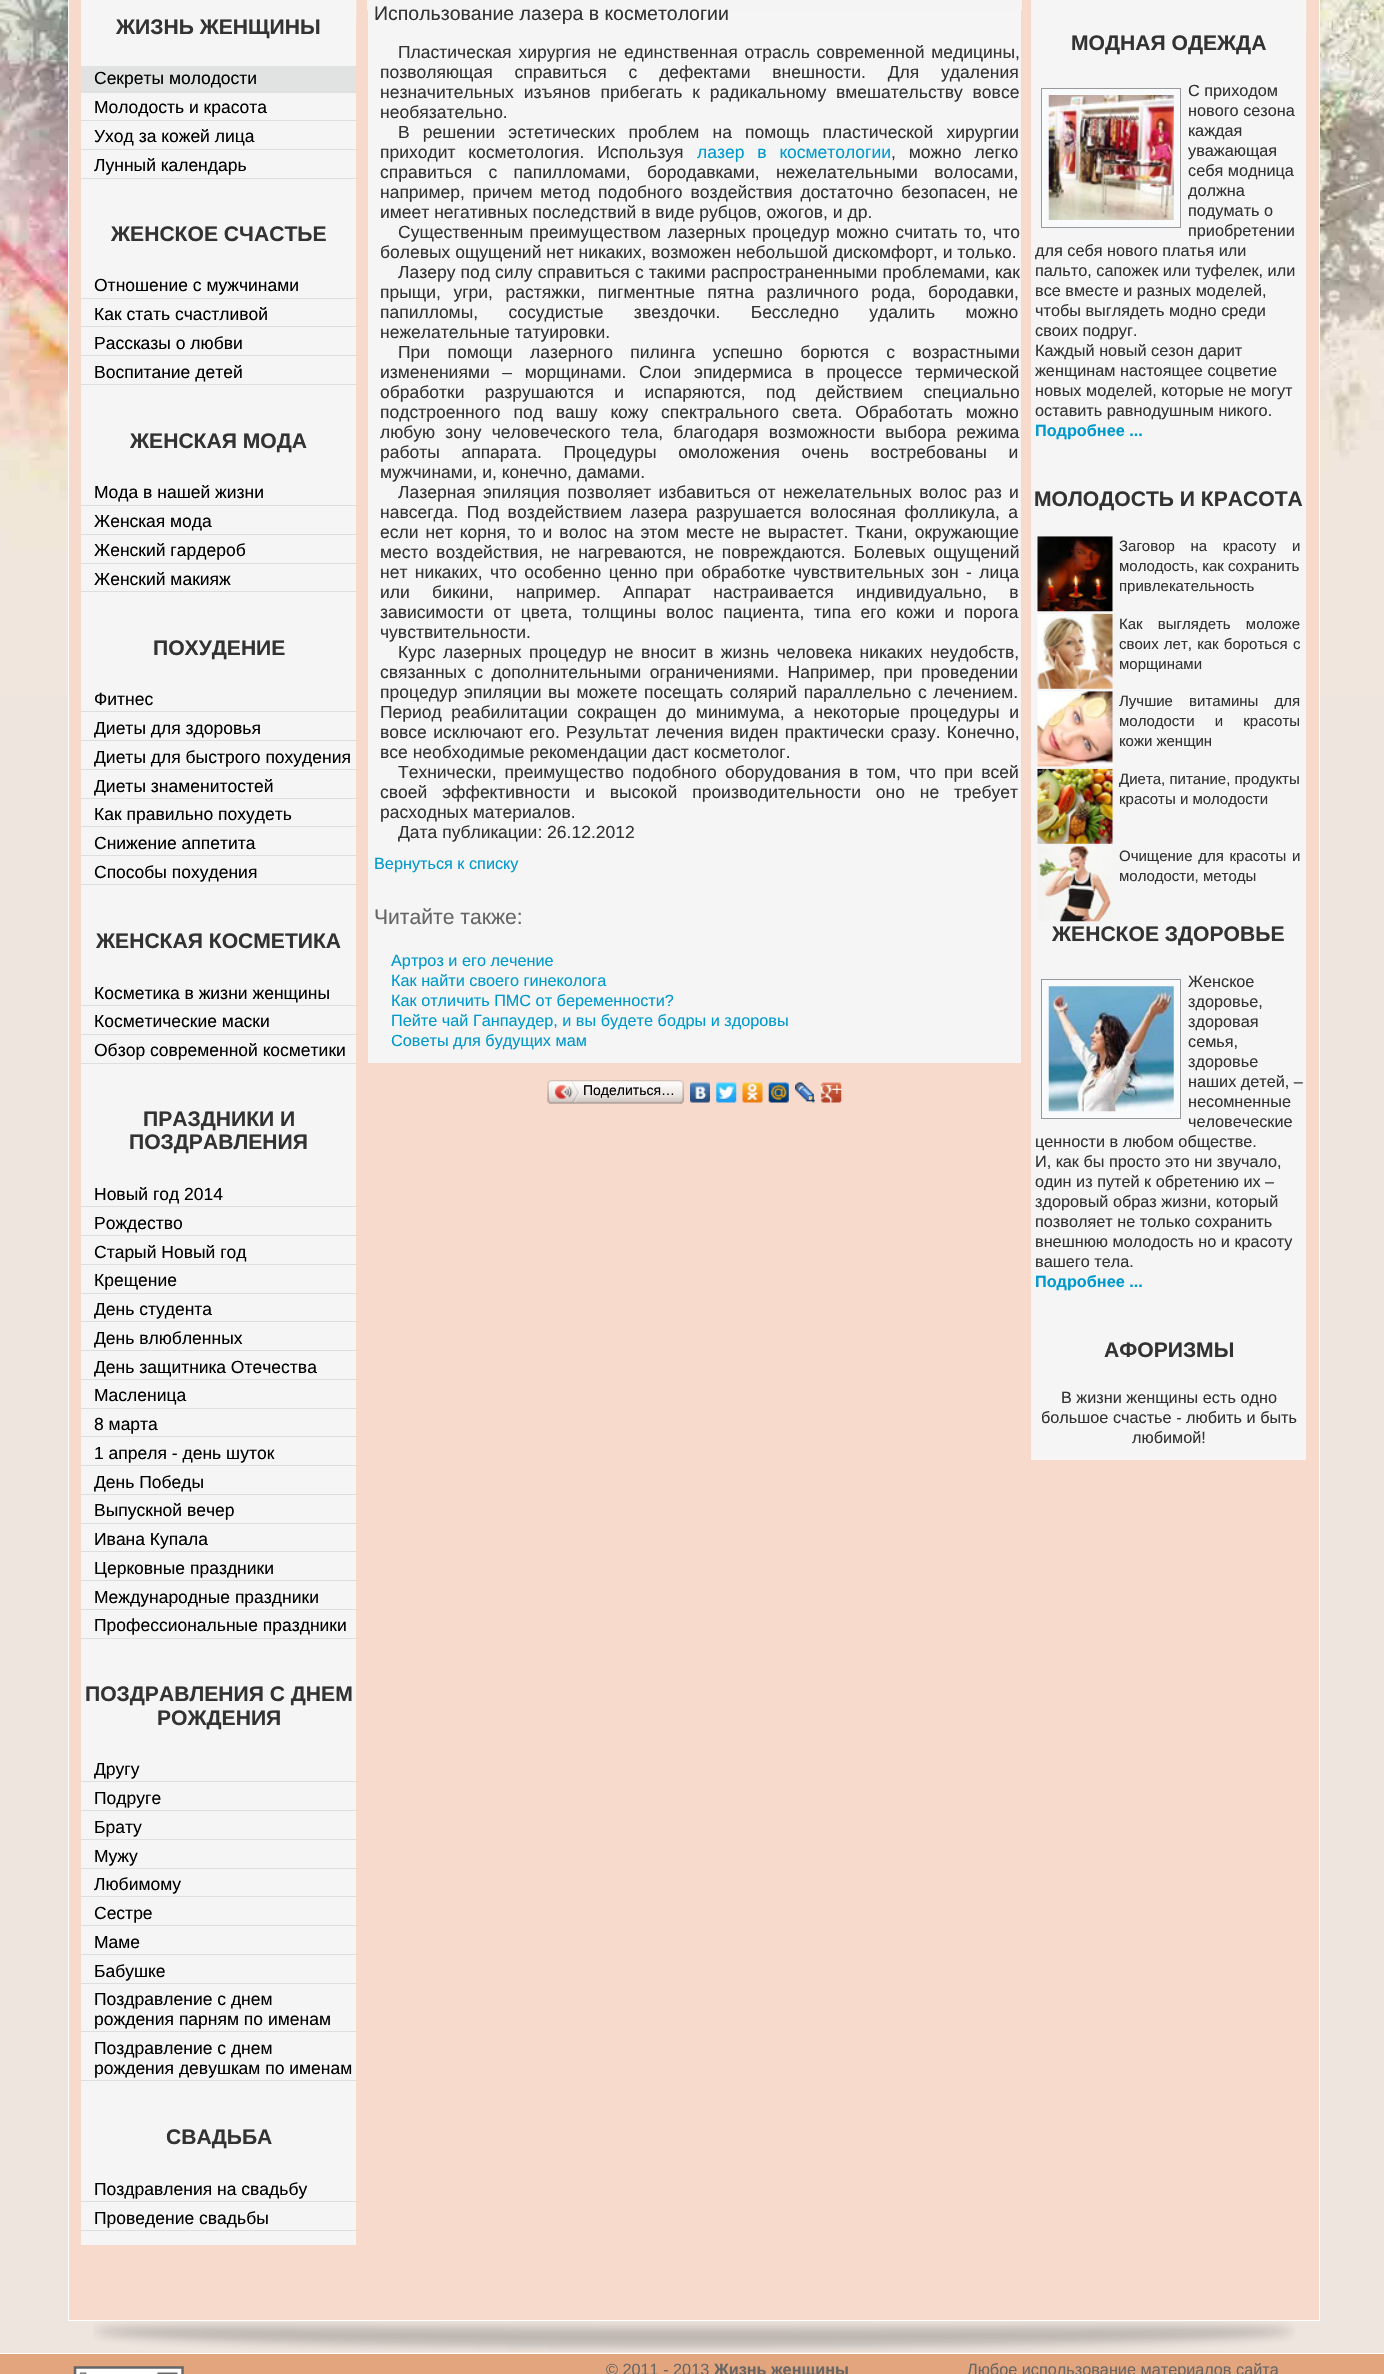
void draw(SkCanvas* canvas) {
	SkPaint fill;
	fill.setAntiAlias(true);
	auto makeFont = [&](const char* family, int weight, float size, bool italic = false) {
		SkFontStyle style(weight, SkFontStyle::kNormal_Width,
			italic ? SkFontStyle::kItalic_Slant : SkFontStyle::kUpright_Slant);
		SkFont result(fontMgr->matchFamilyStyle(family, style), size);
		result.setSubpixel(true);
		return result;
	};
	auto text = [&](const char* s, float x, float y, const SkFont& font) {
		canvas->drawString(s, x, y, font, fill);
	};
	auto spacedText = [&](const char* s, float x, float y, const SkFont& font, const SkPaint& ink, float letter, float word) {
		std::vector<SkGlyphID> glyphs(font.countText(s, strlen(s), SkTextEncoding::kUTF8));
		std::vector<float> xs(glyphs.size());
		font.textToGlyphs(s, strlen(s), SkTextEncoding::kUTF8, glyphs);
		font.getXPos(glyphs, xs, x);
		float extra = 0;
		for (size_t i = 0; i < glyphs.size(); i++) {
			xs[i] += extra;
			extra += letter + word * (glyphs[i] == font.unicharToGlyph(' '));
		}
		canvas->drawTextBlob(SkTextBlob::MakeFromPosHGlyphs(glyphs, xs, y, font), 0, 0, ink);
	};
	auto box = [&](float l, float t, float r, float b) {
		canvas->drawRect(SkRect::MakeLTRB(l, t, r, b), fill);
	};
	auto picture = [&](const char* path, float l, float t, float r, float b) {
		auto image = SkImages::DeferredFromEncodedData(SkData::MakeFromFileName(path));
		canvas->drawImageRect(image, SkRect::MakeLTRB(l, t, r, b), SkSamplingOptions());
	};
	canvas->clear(0xFFEEE5DE);
	picture("image0.png", 0, 0, 1384, 696);
	fill.setColor(0xFFF8DACC);
	canvas->drawRect(SkRect::MakeLTRB(68.5f, -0.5f, 1319.5f, 2320.5f), fill);
	fill.setStyle(SkPaint::kStroke_Style);
	fill.setStrokeWidth(1);
	fill.setColor(0xFFFFFFFF);
	canvas->drawRect(SkRect::MakeLTRB(68.5f, -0.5f, 1319.5f, 2320.5f), fill);
	fill.setStyle(SkPaint::kFill_Style);
	fill.setColor(0xFFF5F5F5);
	box(81, 0, 356, 2245);
	picture("image1.png", 356, 0, 357, 23);
	fill.setColor(0xFFE1E3E3);
	box(81, 66, 356, 93);
	fill.setColor(0xFFDCDFE1);
	box(81, 91, 356, 92);
	box(81, 120, 356, 121);
	box(81, 149, 356, 150);
	box(81, 178, 356, 179);
	box(81, 298, 356, 299);
	box(81, 326, 356, 327);
	box(81, 355, 356, 356);
	box(81, 384, 356, 385);
	box(81, 505, 356, 506);
	box(81, 534, 356, 535);
	box(81, 563, 356, 564);
	box(81, 591, 356, 592);
	box(81, 711, 356, 712);
	box(81, 740, 356, 741);
	box(81, 769, 356, 770);
	box(81, 798, 356, 799);
	box(81, 826, 356, 827);
	box(81, 855, 356, 856);
	box(81, 884, 356, 885);
	box(81, 1005, 356, 1006);
	box(81, 1034, 356, 1035);
	box(81, 1063, 356, 1064);
	box(81, 1206, 356, 1207);
	box(81, 1235, 356, 1236);
	box(81, 1264, 356, 1265);
	box(81, 1293, 356, 1294);
	box(81, 1321, 356, 1322);
	box(81, 1350, 356, 1351);
	box(81, 1379, 356, 1380);
	box(81, 1408, 356, 1409);
	box(81, 1436, 356, 1437);
	box(81, 1465, 356, 1466);
	box(81, 1494, 356, 1495);
	box(81, 1523, 356, 1524);
	box(81, 1551, 356, 1552);
	box(81, 1580, 356, 1581);
	box(81, 1609, 356, 1610);
	box(81, 1638, 356, 1639);
	box(81, 1781, 356, 1782);
	box(81, 1810, 356, 1811);
	box(81, 1839, 356, 1840);
	box(81, 1868, 356, 1869);
	box(81, 1896, 356, 1897);
	box(81, 1925, 356, 1926);
	box(81, 1954, 356, 1955);
	box(81, 1983, 356, 1984);
	box(81, 2031, 356, 2032);
	box(81, 2080, 356, 2081);
	box(81, 2201, 356, 2202);
	box(81, 2230, 356, 2231);
	fill.setColor(0xFFF5F5F5);
	box(368, 10, 1021, 1063);
	fill.setColor(0xFFF4F4F4);
	box(367, 0, 1022, 10);
	picture("image2.png", 551, 1080, 680, 1104);
	picture("image3.png", 547, 1080, 552, 1104);
	picture("image4.png", 555, 1081, 580, 1103);
	picture("image5.png", 680, 1080, 684, 1104);
	picture("image6.png", 690, 1082, 710, 1103);
	picture("image7.png", 716, 1082, 737, 1103);
	picture("image8.png", 742, 1082, 763, 1103);
	picture("image9.png", 768, 1082, 789, 1103);
	picture("image10.png", 795, 1082, 815, 1103);
	picture("image11.png", 821, 1082, 842, 1103);
	fill.setColor(0xFFF5F5F5);
	box(1031, 0, 1306, 1460);
	fill.setColor(0xFFF7E0D6);
	box(1306, 0, 1307, 35);
	fill.setColor(0xFFF8FAFC);
	canvas->drawRect(SkRect::MakeLTRB(1041.5f, 88.5f, 1180.5f, 227.5f), fill);
	fill.setStyle(SkPaint::kStroke_Style);
	fill.setColor(0xFF999999);
	canvas->drawRect(SkRect::MakeLTRB(1041.5f, 88.5f, 1180.5f, 227.5f), fill);
	picture("image12.png", 1048, 95, 1174, 220);
	picture("image13.png", 1037, 536, 1113, 612);
	picture("image14.png", 1037, 613, 1113, 689);
	picture("image15.png", 1037, 691, 1113, 767);
	picture("image16.png", 1037, 768, 1113, 844);
	picture("image17.png", 1037, 846, 1113, 922);
	fill.setStyle(SkPaint::kFill_Style);
	fill.setColor(0xFFF8FAFC);
	canvas->drawRect(SkRect::MakeLTRB(1041.5f, 979.5f, 1180.5f, 1118.5f), fill);
	fill.setStyle(SkPaint::kStroke_Style);
	fill.setColor(0xFF999999);
	canvas->drawRect(SkRect::MakeLTRB(1041.5f, 979.5f, 1180.5f, 1118.5f), fill);
	picture("image18.png", 1048, 986, 1174, 1112);
	picture("image19.png", 93, 2321, 1295, 2352);
	fill.setStyle(SkPaint::kFill_Style);
	fill.setColor(0xFFE3A57E);
	box(0, 2354, 1384, 2374);
	fill.setColor(0xFFFFFFFF);
	box(0, 2353, 1384, 2354);
	picture("image20.png", 73, 2366, 184, 2374);
	auto font1 = makeFont("Liberation Sans", 700, 21.1f);
	fill.setColor(0xFF333333);
	text("ЖИЗНЬ ЖЕНЩИНЫ", 116, 34, font1);
	auto font2 = makeFont("Liberation Sans", 400, 17.5f);
	fill.setColor(0xFF000000);
	text("Секреты молодости", 94, 84, font2);
	text("Молодость и красота", 94, 113, font2);
	text("Уход за кожей лица", 94, 142, font2);
	text("Лунный календарь", 94, 171, font2);
	fill.setColor(0xFF333333);
	text("ЖЕНСКОЕ СЧАСТЬЕ", 111, 241, font1);
	fill.setColor(0xFF000000);
	text("Отношение с мужчинами", 94, 291, font2);
	text("Как стать счастливой", 94, 320, font2);
	text("Рассказы о любви", 94, 349, font2);
	text("Воспитание детей", 94, 378, font2);
	fill.setColor(0xFF333333);
	text("ЖЕНСКАЯ МОДА", 130, 448, font1);
	fill.setColor(0xFF000000);
	text("Мода в нашей жизни", 94, 498, font2);
	text("Женская мода", 94, 527, font2);
	text("Женский гардероб", 94, 556, font2);
	text("Женский макияж", 94, 585, font2);
	fill.setColor(0xFF333333);
	text("ПОХУДЕНИЕ", 153, 655, font1);
	fill.setColor(0xFF000000);
	text("Фитнес", 94, 705, font2);
	text("Диеты для здоровья", 94, 734, font2);
	text("Диеты для быстрого похудения", 94, 763, font2);
	text("Диеты знаменитостей", 94, 792, font2);
	text("Как правильно похудеть", 94, 820, font2);
	text("Снижение аппетита", 94, 849, font2);
	text("Способы похудения", 94, 878, font2);
	fill.setColor(0xFF333333);
	text("ЖЕНСКАЯ КОСМЕТИКА", 96, 948, font1);
	fill.setColor(0xFF000000);
	text("Косметика в жизни женщины", 94, 999, font2);
	text("Косметические маски", 94, 1027, font2);
	text("Обзор современной косметики", 94, 1056, font2);
	fill.setColor(0xFF333333);
	text("ПРАЗДНИКИ И", 143, 1126, font1);
	text("ПОЗДРАВЛЕНИЯ", 129, 1149, font1);
	fill.setColor(0xFF000000);
	text("Новый год 2014", 94, 1200, font2);
	text("Рождество", 94, 1229, font2);
	text("Старый Новый год", 94, 1258, font2);
	text("Крещение", 94, 1286, font2);
	text("День студента", 94, 1315, font2);
	text("День влюбленных", 94, 1344, font2);
	text("День защитника Отечества", 94, 1373, font2);
	text("Масленица", 94, 1401, font2);
	text("8 марта", 94, 1430, font2);
	text("1 апреля - день шуток", 94, 1459, font2);
	text("День Победы", 94, 1488, font2);
	text("Выпускной вечер", 94, 1516, font2);
	text("Ивана Купала", 94, 1545, font2);
	text("Церковные праздники", 94, 1574, font2);
	text("Международные праздники", 94, 1603, font2);
	text("Профессиональные праздники", 94, 1631, font2);
	fill.setColor(0xFF333333);
	text("ПОЗДРАВЛЕНИЯ С ДНЕМ", 85, 1701, font1);
	text("РОЖДЕНИЯ", 157, 1725, font1);
	fill.setColor(0xFF000000);
	text("Другу", 94, 1775, font2);
	text("Подруге", 94, 1804, font2);
	text("Брату", 94, 1833, font2);
	text("Мужу", 94, 1862, font2);
	text("Любимому", 94, 1890, font2);
	text("Сестре", 94, 1919, font2);
	text("Маме", 94, 1948, font2);
	text("Бабушке", 94, 1977, font2);
	text("Поздравление с днем", 94, 2005, font2);
	text("рождения парням по именам", 94, 2025, font2);
	text("Поздравление с днем", 94, 2054, font2);
	text("рождения девушкам по именам", 94, 2074, font2);
	fill.setColor(0xFF333333);
	text("СВАДЬБА", 166, 2144, font1);
	fill.setColor(0xFF000000);
	text("Поздравления на свадьбу", 94, 2195, font2);
	text("Проведение свадьбы", 94, 2224, font2);
	auto font3 = makeFont("Liberation Sans", 400, 19.5f);
	fill.setColor(0xFF333333);
	text("Использование лазера в косметологии", 374, 20, font3);
	spacedText("Пластическая хирургия не единственная отрасль современной медицины,", 398, 58, font2, fill, 0, 2);
	spacedText("позволяющая справиться с дефектами внешности. Для удаления", 380, 78, font2, fill, 0, 17);
	spacedText("незначительных изъянов прибегать к радикальному вмешательству вовсе", 380, 98, font2, fill, 0, 5);
	text("необязательно.", 380, 118, font2);
	spacedText("В решении эстетических проблем на помощь пластической хирургии", 398, 138, font2, fill, 0, 8.25f);
	spacedText("приходит косметология. Используя", 380, 158, font2, fill, 0, 8);
	fill.setColor(0xFF0099CC);
	spacedText("лазер в косметологии", 697, 158, font2, fill, 0, 8);
	fill.setColor(0xFF333333);
	spacedText(", можно легко", 891, 158, font2, fill, 0, 8);
	spacedText("справиться с папилломами, бородавками, нежелательными волосами,", 380, 178, font2, fill, 0, 11.5f);
	spacedText("например, причем метод подобного воздействия достаточно безопасен, не", 380, 198, font2, fill, 0, 3);
	text("имеет негативных последствий в виде рубцов, ожогов, и др.", 380, 218, font2);
	spacedText("Существенным преимуществом лазерных процедур можно считать то, что", 398, 238, font2, fill, 0, 1.5f);
	text("болевых ощущений нет никаких, возможен небольшой дискомфорт, и только.", 380, 258, font2);
	spacedText("Лазеру под силу справиться с такими распространенными проблемами, как", 398, 278, font2, fill, 0, 0.25f);
	spacedText("прыщи, угри, растяжки, пигментные пятна различного рода, бородавки,", 380, 298, font2, fill, 0, 7.75f);
	spacedText("папилломы, сосудистые звездочки. Бесследно удалить можно", 380, 318, font2, fill, 0, 25.5f);
	text("нежелательные татуировки.", 380, 338, font2);
	spacedText("При помощи лазерного пилинга успешно борются с возрастными", 398, 358, font2, fill, 0, 12.5f);
	spacedText("изменениями – морщинами. Слои эпидермиса в процессе термической", 380, 378, font2, fill, 0, 7.75f);
	spacedText("обработки разрушаются и испаряются, под действием специально", 380, 398, font2, fill, 0, 15.5f);
	spacedText("подстроенного под вашу кожу спектрального света. Обработать можно", 380, 418, font2, fill, 0, 8);
	spacedText("любую зону человеческого тела, благодаря возможности выбора режима", 380, 438, font2, fill, 0, 5.25f);
	spacedText("работы аппарата. Процедуры омоложения очень востребованы и", 380, 458, font2, fill, 0, 16.75f);
	text("мужчинами, и, конечно, дамами.", 380, 478, font2);
	spacedText("Лазерная эпиляция позволяет избавиться от нежелательных волос раз и", 398, 498, font2, fill, 0, 2.5f);
	spacedText("навсегда. Под воздействием лазера разрушается волосяная фолликула, а", 380, 518, font2, fill, 0, 3.5f);
	spacedText("если нет корня, то и волос на этом месте не вырастет. Ткани, окружающие", 380, 538, font2, fill, 0, 2.1f);
	spacedText("место воздействия, не нагреваются, не повреждаются. Болевых ощущений", 380, 558, font2, fill, 0, 3);
	spacedText("нет никаких, что особенно ценно при обработке чувствительных зон - лица", 380, 578, font2, fill, 0, 2.5f);
	spacedText("или бикини, например. Аппарат настраивается индивидуально, в", 380, 598, font2, fill, 0, 17.5f);
	spacedText("зависимости от цвета, толщины волос пациента, типа его кожи и порога", 380, 618, font2, fill, 0, 4.75f);
	text("чувствительности.", 380, 638, font2);
	spacedText("Курс лазерных процедур не вносит в жизнь человека никаких неудобств,", 398, 658, font2, fill, 0, 2.75f);
	spacedText("связанных с дополнительными ограничениями. Например, при проведении", 380, 678, font2, fill, 0, 3.5f);
	spacedText("процедур эпиляции вы можете посещать солярий параллельно с лечением.", 380, 698, font2, fill, 0, 1.75f);
	spacedText("Период реабилитации сокращен до минимума, а некоторые процедуры и", 380, 718, font2, fill, 0, 4.75f);
	spacedText("вовсе исключают его. Результат лечения виден практически сразу. Конечно,", 380, 738, font2, fill, 0, 1.5f);
	text("все необходимые рекомендации даст косметолог.", 380, 758, font2);
	spacedText("Технически, преимущество подобного оборудования в том, что при всей", 398, 778, font2, fill, 0, 3.25f);
	spacedText("своей эффективности и высокой производительности оно не требует", 380, 798, font2, fill, 0, 10);
	text("расходных материалов.", 380, 818, font2);
	text("Дата публикации: 26.12.2012", 398, 838, font2);
	auto font4 = makeFont("Liberation Sans", 400, 16.25f);
	fill.setColor(0xFF0099CC);
	text("Вернуться к списку", 374, 869, font4);
	auto font5 = makeFont("Liberation Sans", 400, 21.1f);
	fill.setColor(0xFF666666);
	text("Читайте также:", 374, 924, font5);
	fill.setColor(0xFF0099CC);
	text("Артроз и его лечение", 391, 966, font4);
	text("Как найти своего гинеколога", 391, 986, font4);
	text("Как отличить ПМС от беременности?", 391, 1006, font4);
	text("Пейте чай Ганпаудер, и вы будете бодры и здоровы", 391, 1026, font4);
	text("Советы для будущих мам", 391, 1046, font4);
	auto font6 = makeFont("Liberation Sans", 400, 14);
	fill.setColor(0xFF000000);
	text("Поделиться…", 583, 1095, font6);
	fill.setColor(0xFF333333);
	text("МОДНАЯ ОДЕЖДА", 1071, 50, font1);
	text("С приходом", 1188, 96, font4);
	text("нового сезона", 1188, 116, font4);
	text("каждая", 1188, 136, font4);
	text("уважающая", 1188, 156, font4);
	text("себя модница", 1188, 176, font4);
	text("должна", 1188, 196, font4);
	text("подумать о", 1188, 216, font4);
	text("приобретении", 1188, 236, font4);
	text("для себя нового платья или", 1035, 256, font4);
	text("пальто, сапожек или туфелек, или", 1035, 276, font4);
	text("все вместе и разных моделей,", 1035, 296, font4);
	text("чтобы выглядеть модно среди", 1035, 316, font4);
	text("своих подруг.", 1035, 336, font4);
	text("Каждый новый сезон дарит", 1035, 356, font4);
	text("женщинам настоящее соцветие", 1035, 376, font4);
	text("новых моделей, которые не могут", 1035, 396, font4);
	text("оставить равнодушным никого.", 1035, 416, font4);
	auto font7 = makeFont("Liberation Sans", 700, 16.25f);
	fill.setColor(0xFF0099CC);
	text("Подробнее ...", 1035, 436, font7);
	fill.setColor(0xFF333333);
	text("МОЛОДОСТЬ И КРАСОТА", 1034, 506, font1);
	auto font8 = makeFont("Liberation Sans", 400, 15);
	spacedText("Заговор на красоту и", 1119, 551, font8, fill, 0, 11.5f);
	text("молодость, как сохранить", 1119, 571, font8);
	text("привлекательность", 1119, 591, font8);
	spacedText("Как выглядеть моложе", 1119, 629, font8, fill, 0, 11);
	spacedText("своих лет, как бороться с", 1119, 649, font8, fill, 0, 1);
	text("морщинами", 1119, 669, font8);
	spacedText("Лучшие витамины для", 1119, 706, font8, fill, 0, 12);
	spacedText("молодости и красоты", 1119, 726, font8, fill, 0, 16);
	text("кожи женщин", 1119, 746, font8);
	text("Диета, питание, продукты", 1119, 784, font8);
	text("красоты и молодости", 1119, 804, font8);
	spacedText("Очищение для красоты и", 1119, 861, font8, fill, 0, 1.5f);
	text("молодости, методы", 1119, 881, font8);
	text("ЖЕНСКОЕ ЗДОРОВЬЕ", 1052, 941, font1);
	text("Женское", 1188, 987, font4);
	text("здоровье,", 1188, 1007, font4);
	text("здоровая", 1188, 1027, font4);
	text("семья,", 1188, 1047, font4);
	text("здоровье", 1188, 1067, font4);
	text("наших детей, –", 1188, 1087, font4);
	text("несомненные", 1188, 1107, font4);
	text("человеческие", 1188, 1127, font4);
	text("ценности в любом обществе.", 1035, 1147, font4);
	text("И, как бы просто это ни звучало,", 1035, 1167, font4);
	text("один из путей к обретению их –", 1035, 1187, font4);
	text("здоровый образ жизни, который", 1035, 1207, font4);
	text("позволяет не только сохранить", 1035, 1227, font4);
	text("внешнюю молодость но и красоту", 1035, 1247, font4);
	text("вашего тела.", 1035, 1267, font4);
	fill.setColor(0xFF0099CC);
	text("Подробнее ...", 1035, 1287, font7);
	fill.setColor(0xFF333333);
	text("АФОРИЗМЫ", 1104, 1357, font1);
	text("В жизни женщины есть одно", 1061, 1403, font4);
	text("большое счастье - любить и быть", 1041, 1423, font4);
	text("любимой!", 1132, 1443, font4);
	fill.setColor(0xFF666666);
	text("© 2011 - 2013", 606, 2375, font4);
	text("Жизнь женщины", 714, 2375, font7);
	text("Любое использование материалов сайта", 967, 2375, font4);
}
